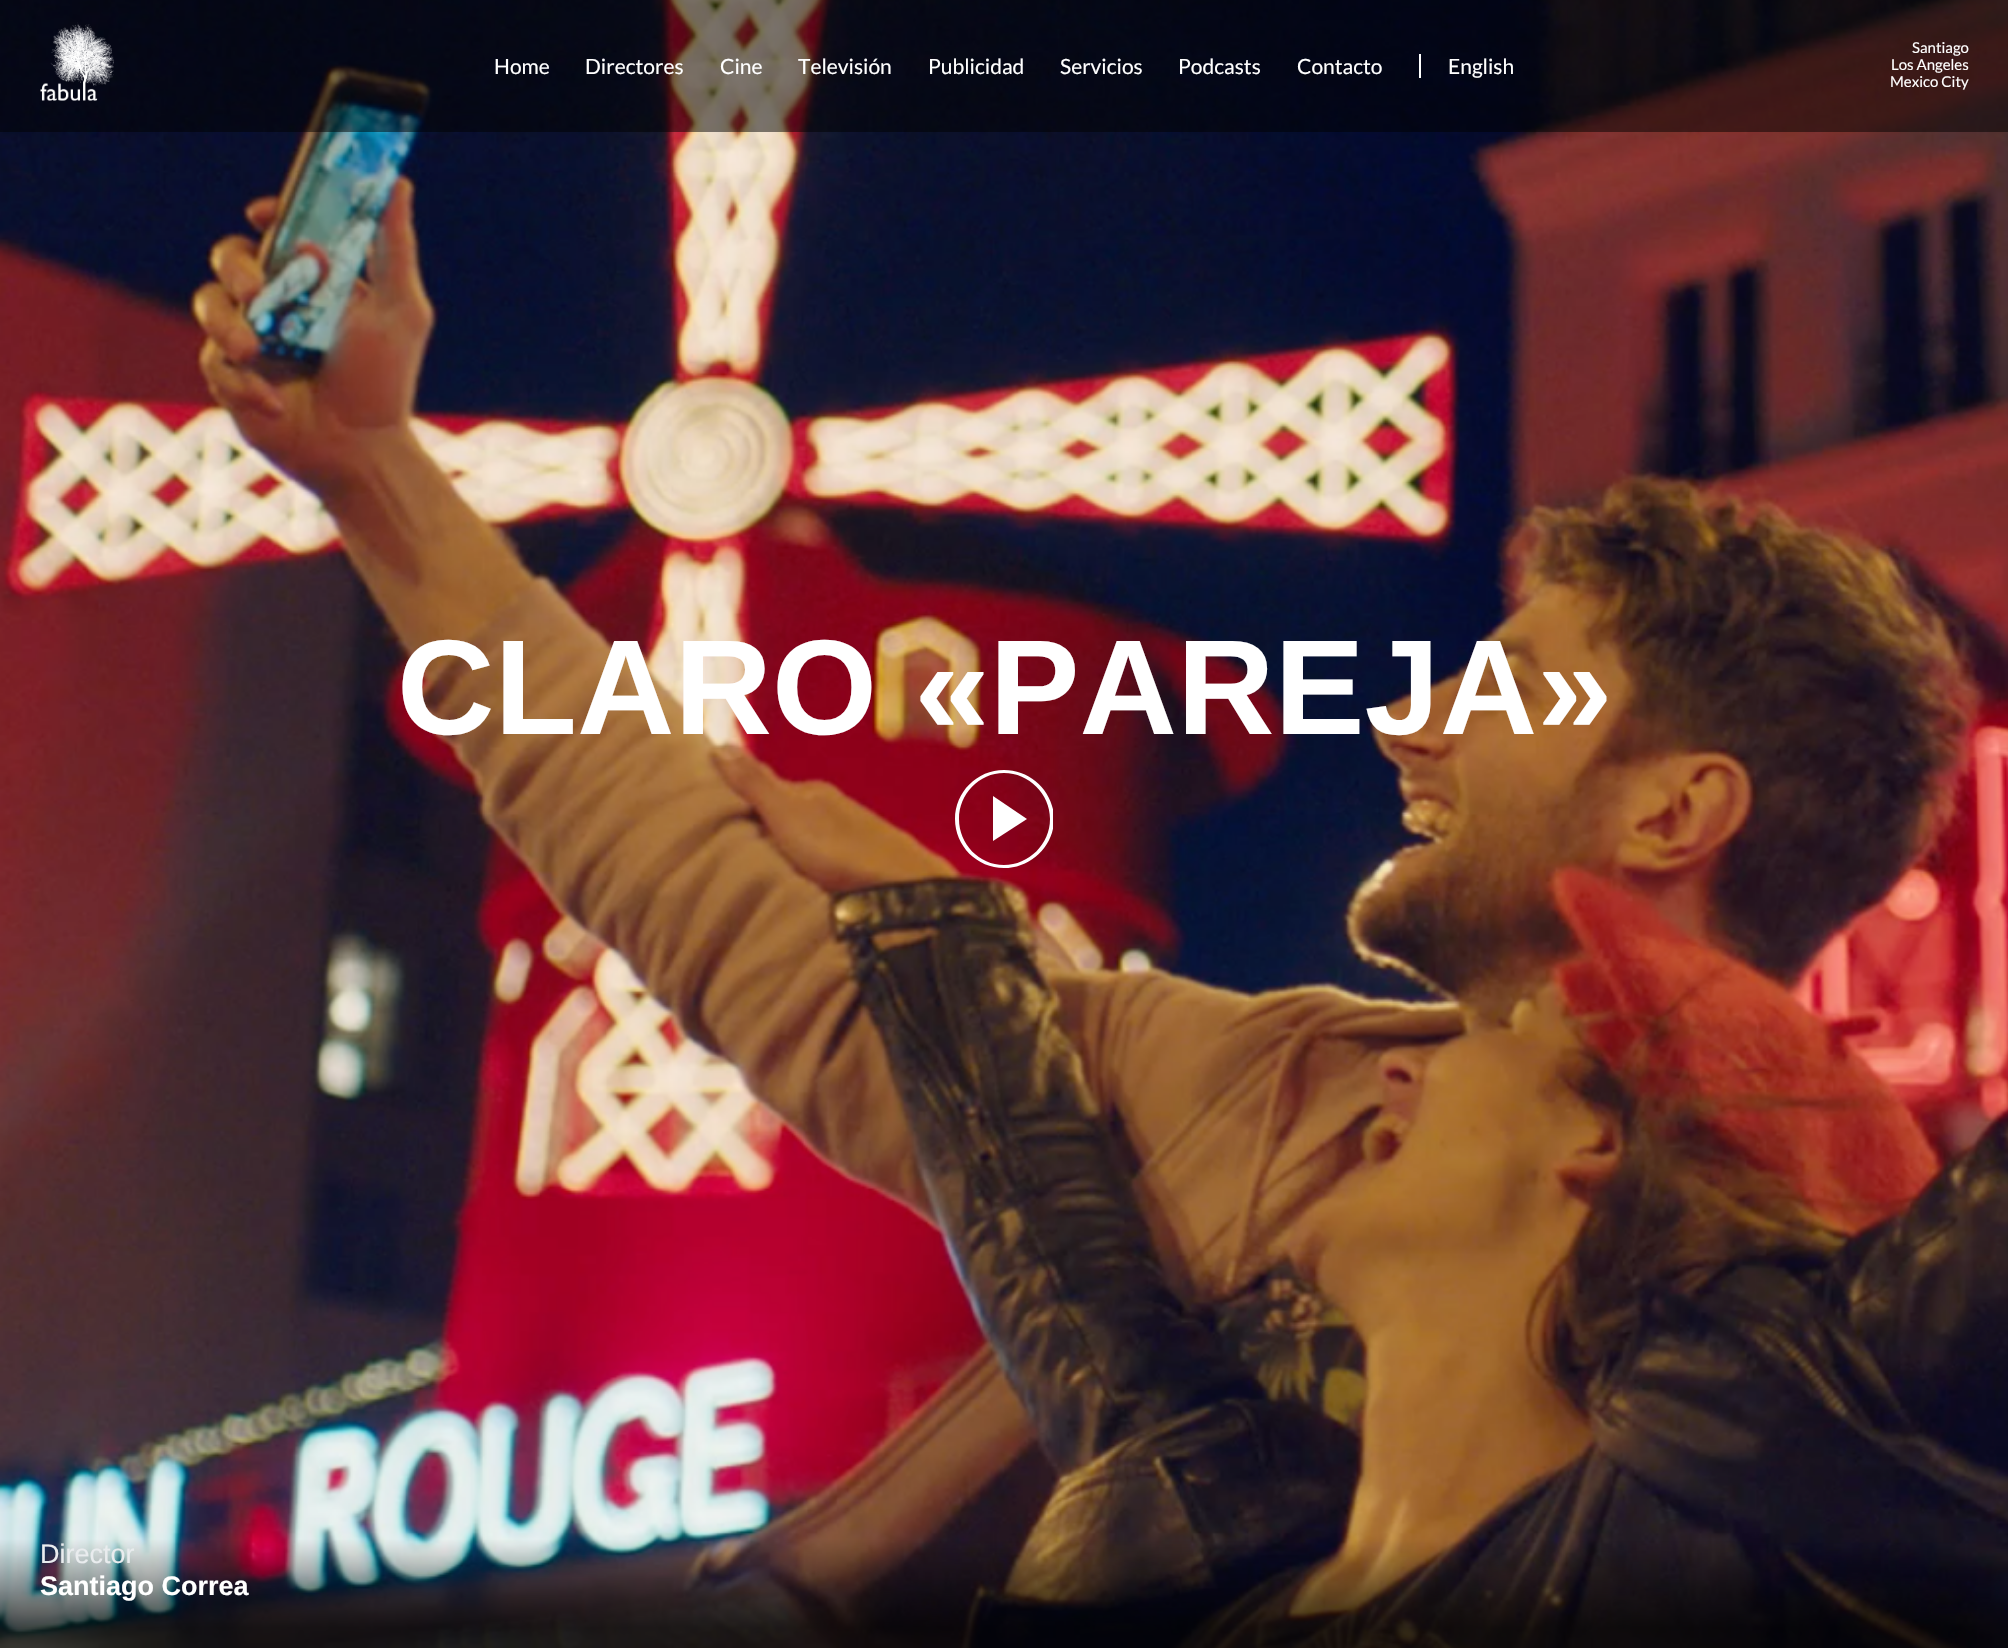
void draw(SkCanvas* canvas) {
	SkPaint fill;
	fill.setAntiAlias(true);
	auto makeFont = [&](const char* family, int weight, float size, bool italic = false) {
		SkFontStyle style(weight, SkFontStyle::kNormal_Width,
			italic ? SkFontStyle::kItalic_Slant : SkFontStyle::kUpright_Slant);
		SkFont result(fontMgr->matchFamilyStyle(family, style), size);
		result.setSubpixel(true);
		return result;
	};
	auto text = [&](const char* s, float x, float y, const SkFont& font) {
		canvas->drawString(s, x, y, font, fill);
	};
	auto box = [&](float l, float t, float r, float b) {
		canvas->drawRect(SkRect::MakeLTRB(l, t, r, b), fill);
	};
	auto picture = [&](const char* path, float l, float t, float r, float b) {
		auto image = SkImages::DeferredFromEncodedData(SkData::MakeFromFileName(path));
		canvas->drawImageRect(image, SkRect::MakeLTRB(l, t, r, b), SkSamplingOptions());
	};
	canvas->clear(0xFFFFFFFF);
	picture("image1.png", 0, 0, 2008, 1648);
	fill.setColor(0x80000000);
	box(0, 0, 2008, 132);
	picture("image0.png", 40, 22, 114, 101);
	fill.setColor(0xFFFFFFFF);
	box(1419, 54, 1421, 78);
	canvas->drawPath(SkPathBuilder().moveTo(993, 841).lineTo(1027, 819).lineTo(993, 796).close().detach(), fill);
	canvas->save();
	canvas->clipRect(SkRect::MakeLTRB(954, 770, 1053, 869));
	canvas->drawPath(SkPathBuilder().moveTo(1004, 770).cubicTo(977, 770, 955, 792, 955, 819).cubicTo(955, 846, 977, 868, 1004, 868).cubicTo(1031, 868, 1054, 846, 1054, 819).cubicTo(1054, 792, 1031, 770, 1004, 770).close().moveTo(1004, 865).cubicTo(979, 865, 959, 844, 959, 819).cubicTo(959, 794, 979, 773, 1004, 773).cubicTo(1029, 773, 1050, 794, 1050, 819).cubicTo(1050, 844, 1029, 865, 1004, 865).close().detach(), fill);
	canvas->restore();
	auto font1 = makeFont("Lato", 400, 21);
	text("Home", 494, 74, font1);
	text("Directores", 585, 74, font1);
	text("Cine", 720, 74, font1);
	text("Televisión", 798, 74, font1);
	text("Publicidad", 928, 74, font1);
	text("Servicios", 1060, 74, font1);
	text("Podcasts", 1178, 74, font1);
	text("Contacto", 1297, 74, font1);
	text("English", 1448, 74, font1);
	auto font2 = makeFont("Lato", 400, 15);
	text("Santiago", 1912, 53, font2);
	text("Los Angeles", 1891, 70, font2);
	text("Mexico City", 1890, 87, font2);
	auto font3 = makeFont("Liberation Sans", 700, 135);
	text("CLARO «PAREJA»", 397, 734, font3);
	auto font4 = makeFont("Liberation Sans", 400, 27);
	fill.setColor(0xFFE9ECEE);
	text("Director", 40, 1563, font4);
	auto font5 = makeFont("Liberation Sans", 700, 27);
	fill.setColor(0xFFFFFFFF);
	text("Santiago Correa", 40, 1595, font5);
}
